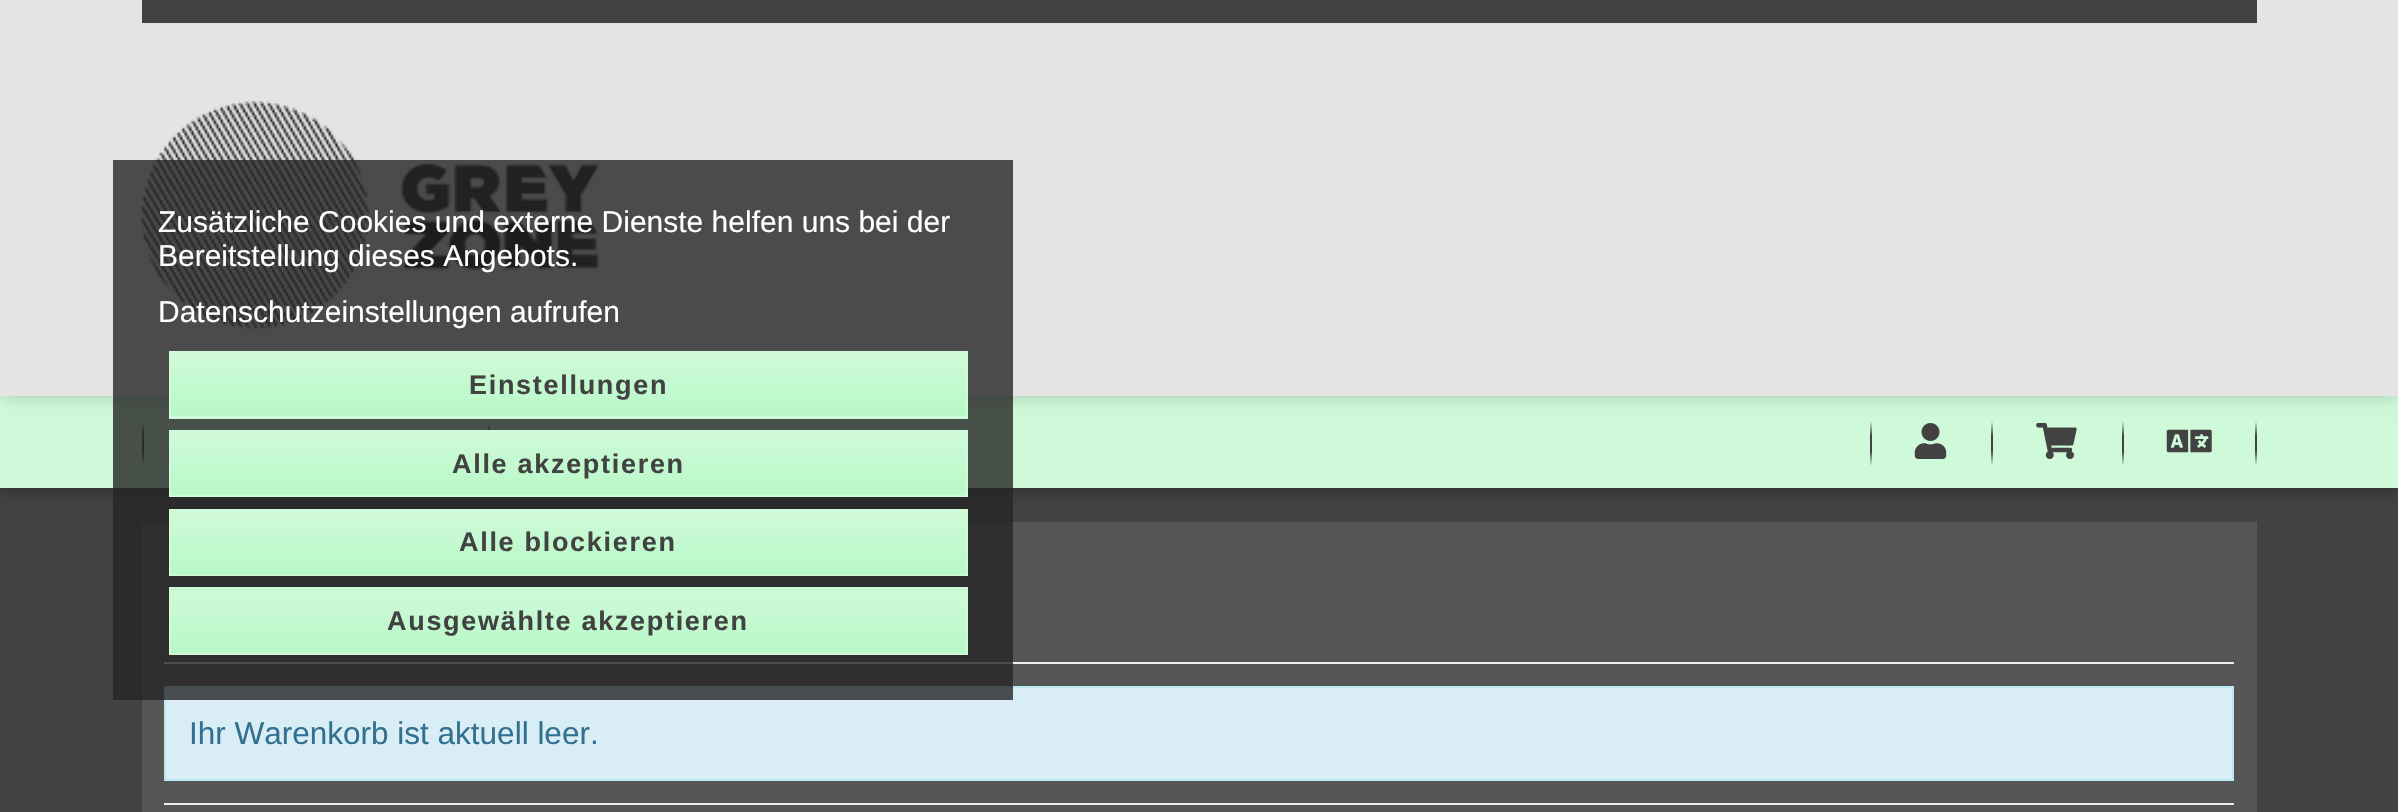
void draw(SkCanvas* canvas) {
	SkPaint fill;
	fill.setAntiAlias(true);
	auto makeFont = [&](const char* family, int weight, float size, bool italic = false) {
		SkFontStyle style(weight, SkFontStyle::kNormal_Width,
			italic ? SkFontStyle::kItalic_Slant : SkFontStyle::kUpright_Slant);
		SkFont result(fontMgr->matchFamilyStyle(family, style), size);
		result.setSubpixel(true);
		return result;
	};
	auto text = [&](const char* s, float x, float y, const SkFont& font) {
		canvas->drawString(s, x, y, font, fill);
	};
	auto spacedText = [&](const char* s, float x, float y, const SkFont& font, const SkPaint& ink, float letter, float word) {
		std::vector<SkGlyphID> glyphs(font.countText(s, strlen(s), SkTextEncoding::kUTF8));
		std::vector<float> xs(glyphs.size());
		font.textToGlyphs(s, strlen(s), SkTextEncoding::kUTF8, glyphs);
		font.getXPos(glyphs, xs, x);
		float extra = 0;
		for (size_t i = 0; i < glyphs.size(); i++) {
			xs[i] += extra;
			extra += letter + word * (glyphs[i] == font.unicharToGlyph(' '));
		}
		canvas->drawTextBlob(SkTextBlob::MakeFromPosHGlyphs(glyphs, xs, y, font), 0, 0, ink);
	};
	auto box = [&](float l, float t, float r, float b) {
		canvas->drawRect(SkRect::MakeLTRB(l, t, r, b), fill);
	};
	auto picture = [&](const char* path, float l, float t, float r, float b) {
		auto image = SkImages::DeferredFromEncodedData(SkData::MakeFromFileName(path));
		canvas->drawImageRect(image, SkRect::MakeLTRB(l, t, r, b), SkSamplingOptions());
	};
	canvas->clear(0xFF424242);
	fill.setColor(0x66000000);
	fill.setMaskFilter(SkMaskFilter::MakeBlur(kNormal_SkBlurStyle, 9));
	canvas->drawRect(SkRect::MakeLTRB(0, 396, 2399, 488), fill);
	fill.setMaskFilter(nullptr);
	fill.setColor(0xFFCFFAD9);
	box(0, 396, 2398, 488);
	{
		const SkColor colors[] = {0xFFCFFAD9, 0xFF424242, 0xFF424242, 0xFFCFFAD9};
		const float stops[] = {0, 0.33f, 0.67f, 1};
		const SkPoint ends[] = {{143, 421}, {143, 466}};
		fill.setShader(SkGradientShader::MakeLinear(ends, colors, stops, 4, SkTileMode::kClamp));
		fill.setAlpha(255);
	}
	box(142, 421, 144, 466);
	{
		const SkColor colors[] = {0xFFCFFAD9, 0xFF424242, 0xFF424242, 0xFFCFFAD9};
		const float stops[] = {0, 0.33f, 0.67f, 1};
		const SkPoint ends[] = {{489, 421}, {489, 466}};
		fill.setShader(SkGradientShader::MakeLinear(ends, colors, stops, 4, SkTileMode::kClamp));
		fill.setAlpha(255);
	}
	box(488, 421, 490, 430);
	{
		const SkColor colors[] = {0xFFCFFAD9, 0xFF424242, 0xFF424242, 0xFFCFFAD9};
		const float stops[] = {0, 0.33f, 0.67f, 1};
		const SkPoint ends[] = {{1871, 421}, {1871, 466}};
		fill.setShader(SkGradientShader::MakeLinear(ends, colors, stops, 4, SkTileMode::kClamp));
		fill.setAlpha(255);
	}
	box(1870, 421, 1872, 466);
	picture("image1.png", 1914, 423, 1947, 459);
	{
		const SkColor colors[] = {0xFFCFFAD9, 0xFF424242, 0xFF424242, 0xFFCFFAD9};
		const float stops[] = {0, 0.33f, 0.67f, 1};
		const SkPoint ends[] = {{1992, 421}, {1992, 466}};
		fill.setShader(SkGradientShader::MakeLinear(ends, colors, stops, 4, SkTileMode::kClamp));
		fill.setAlpha(255);
	}
	box(1991, 421, 1993, 466);
	picture("image2.png", 2036, 423, 2077, 459);
	{
		const SkColor colors[] = {0xFFCFFAD9, 0xFF424242, 0xFF424242, 0xFFCFFAD9};
		const float stops[] = {0, 0.33f, 0.67f, 1};
		const SkPoint ends[] = {{2123, 421}, {2123, 466}};
		fill.setShader(SkGradientShader::MakeLinear(ends, colors, stops, 4, SkTileMode::kClamp));
		fill.setAlpha(255);
	}
	box(2122, 421, 2124, 466);
	{
		const SkColor colors[] = {0xFFCFFAD9, 0xFF424242, 0xFF424242, 0xFFCFFAD9};
		const float stops[] = {0, 0.33f, 0.67f, 1};
		const SkPoint ends[] = {{2256, 421}, {2256, 466}};
		fill.setShader(SkGradientShader::MakeLinear(ends, colors, stops, 4, SkTileMode::kClamp));
		fill.setAlpha(255);
	}
	box(2255, 421, 2257, 466);
	fill.setShader(nullptr);
	fill.setColor(0x33000000);
	fill.setMaskFilter(SkMaskFilter::MakeBlur(kNormal_SkBlurStyle, 9));
	canvas->drawRect(SkRect::MakeLTRB(0, 0, 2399, 396), fill);
	fill.setMaskFilter(nullptr);
	fill.setColor(0xFFE4E4E4);
	box(0, 0, 2398, 396);
	fill.setColor(0xFF424242);
	box(142, 0, 2257, 23);
	picture("image0.png", 141, 101, 600, 329);
	fill.setColor(0xFF565656);
	box(142, 522, 2257, 812);
	fill.setColor(0xFFEEEEEE);
	box(164, 662, 2234, 664);
	fill.setColor(0xFFD9EDF7);
	canvas->drawRect(SkRect::MakeLTRB(165, 687, 2233, 780), fill);
	fill.setStyle(SkPaint::kStroke_Style);
	fill.setStrokeWidth(2);
	fill.setColor(0xFFBCE8F1);
	canvas->drawRect(SkRect::MakeLTRB(165, 687, 2233, 780), fill);
	fill.setStyle(SkPaint::kFill_Style);
	fill.setColor(0xCC242424);
	box(113, 160, 1013, 700);
	{
		const SkColor colors[] = {0xFFCFFAD9, 0xFFB8F8C7};
		const float stops[] = {0, 1};
		const SkPoint ends[] = {{568, 353}, {568, 416}};
		fill.setShader(SkGradientShader::MakeLinear(ends, colors, stops, 2, SkTileMode::kClamp));
		fill.setAlpha(255);
	}
	box(171, 353, 966, 416);
	{
		const SkColor colors[] = {0xFFCFFAD9, 0xFFB8F8C7};
		const float stops[] = {0, 1};
		const SkPoint ends[] = {{568, 416}, {568, 479}};
		fill.setShader(SkGradientShader::MakeLinear(ends, colors, stops, 2, SkTileMode::kClamp));
		fill.setAlpha(255);
	}
	box(169, 416, 968, 417);
	fill.setStyle(SkPaint::kStroke_Style);
	fill.setShader(nullptr);
	fill.setColor(0xFFCFFAD9);
	canvas->drawRect(SkRect::MakeLTRB(170, 352, 967, 418), fill);
	fill.setStyle(SkPaint::kFill_Style);
	{
		const SkColor colors[] = {0xFFCFFAD9, 0xFFB8F8C7};
		const float stops[] = {0, 1};
		const SkPoint ends[] = {{568, 432}, {568, 495}};
		fill.setShader(SkGradientShader::MakeLinear(ends, colors, stops, 2, SkTileMode::kClamp));
		fill.setAlpha(255);
	}
	box(171, 432, 966, 495);
	fill.setStyle(SkPaint::kStroke_Style);
	fill.setShader(nullptr);
	fill.setColor(0xFFCFFAD9);
	canvas->drawRect(SkRect::MakeLTRB(170, 431, 967, 496), fill);
	fill.setStyle(SkPaint::kFill_Style);
	{
		const SkColor colors[] = {0xFFCFFAD9, 0xFFB8F8C7};
		const float stops[] = {0, 1};
		const SkPoint ends[] = {{568, 511}, {568, 574}};
		fill.setShader(SkGradientShader::MakeLinear(ends, colors, stops, 2, SkTileMode::kClamp));
		fill.setAlpha(255);
	}
	box(171, 511, 966, 574);
	fill.setStyle(SkPaint::kStroke_Style);
	fill.setShader(nullptr);
	fill.setColor(0xFFCFFAD9);
	canvas->drawRect(SkRect::MakeLTRB(170, 510, 967, 575), fill);
	fill.setStyle(SkPaint::kFill_Style);
	{
		const SkColor colors[] = {0xFFCFFAD9, 0xFFB8F8C7};
		const float stops[] = {0, 1};
		const SkPoint ends[] = {{568, 526}, {568, 590}};
		fill.setShader(SkGradientShader::MakeLinear(ends, colors, stops, 2, SkTileMode::kClamp));
		fill.setAlpha(255);
	}
	box(169, 589, 968, 590);
	{
		const SkColor colors[] = {0xFFCFFAD9, 0xFFB8F8C7};
		const float stops[] = {0, 1};
		const SkPoint ends[] = {{568, 590}, {568, 653}};
		fill.setShader(SkGradientShader::MakeLinear(ends, colors, stops, 2, SkTileMode::kClamp));
		fill.setAlpha(255);
	}
	box(171, 590, 966, 653);
	fill.setStyle(SkPaint::kStroke_Style);
	fill.setShader(nullptr);
	fill.setColor(0xFFCFFAD9);
	canvas->drawRect(SkRect::MakeLTRB(170, 588, 967, 654), fill);
	picture("image3.png", 2166, 429, 2212, 453);
	fill.setStyle(SkPaint::kFill_Style);
	fill.setColor(0xFFEEEEEE);
	box(164, 803, 2234, 805);
	auto font1 = makeFont("Liberation Sans", 400, 30);
	fill.setColor(0xFFFFFFFF);
	text("Zusätzliche Cookies und externe Dienste helfen uns bei der", 158, 232, font1);
	text("Bereitstellung dieses Angebots.", 158, 266, font1);
	text("Datenschutzeinstellungen aufrufen", 158, 322, font1);
	auto font2 = makeFont("Liberation Sans", 700, 27);
	fill.setColor(0xFF424242);
	spacedText("Einstellungen", 469, 394, font2, fill, 1.7f, 0);
	spacedText("Alle akzeptieren", 452, 473, font2, fill, 1.7f, 0);
	spacedText("Alle blockieren", 459, 551, font2, fill, 1.7f, 0);
	spacedText("Ausgewählte akzeptieren", 387, 630, font2, fill, 1.7f, 0);
	auto font3 = makeFont("Liberation Sans", 400, 31.5f);
	fill.setColor(0xFF31708F);
	text("Ihr Warenkorb ist aktuell leer.", 189, 744, font3);
}
